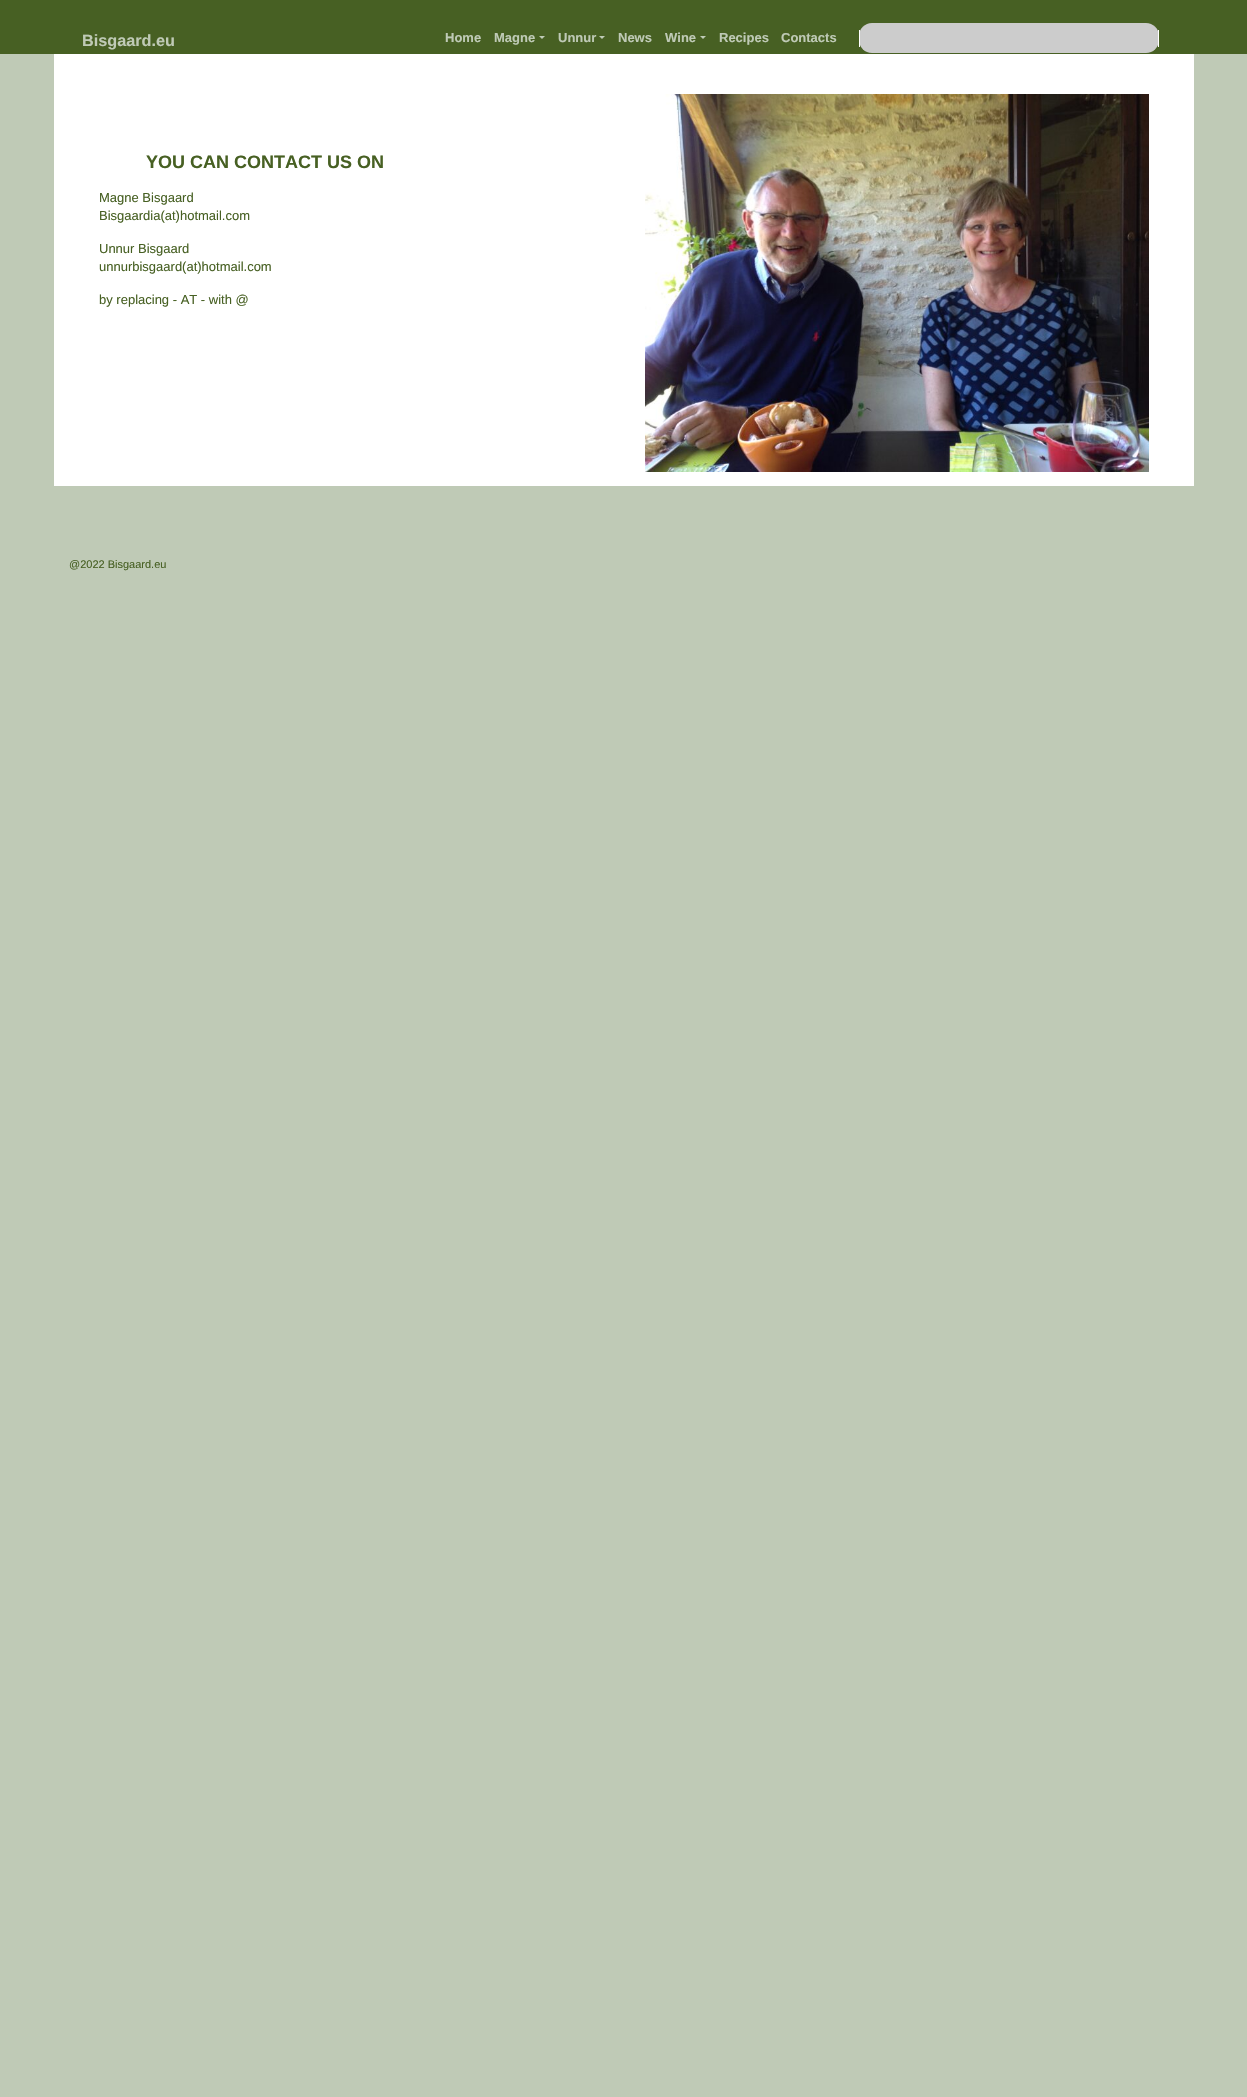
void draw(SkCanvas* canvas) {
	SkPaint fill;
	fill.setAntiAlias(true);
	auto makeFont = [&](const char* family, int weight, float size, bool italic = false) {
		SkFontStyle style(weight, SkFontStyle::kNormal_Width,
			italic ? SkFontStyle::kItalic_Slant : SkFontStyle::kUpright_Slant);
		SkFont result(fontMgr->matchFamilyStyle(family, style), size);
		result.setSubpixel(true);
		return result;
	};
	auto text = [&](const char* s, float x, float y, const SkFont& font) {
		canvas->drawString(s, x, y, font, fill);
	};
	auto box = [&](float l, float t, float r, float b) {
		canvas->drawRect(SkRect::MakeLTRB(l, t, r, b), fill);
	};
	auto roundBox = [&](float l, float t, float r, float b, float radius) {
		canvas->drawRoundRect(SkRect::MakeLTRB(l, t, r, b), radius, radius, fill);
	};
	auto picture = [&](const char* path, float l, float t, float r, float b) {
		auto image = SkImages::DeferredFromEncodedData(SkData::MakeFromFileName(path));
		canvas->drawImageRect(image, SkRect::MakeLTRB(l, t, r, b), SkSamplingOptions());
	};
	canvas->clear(0xFFBFCAB6);
	fill.setColor(0xFF476023);
	box(0, 0, 1247, 54);
	fill.setColor(0xFFBFCAB6);
	canvas->drawPath(SkPathBuilder().moveTo(539, 36).lineTo(545, 36).lineTo(542, 39).close().detach(), fill);
	canvas->drawPath(SkPathBuilder().moveTo(599, 36).lineTo(605, 36).lineTo(602, 39).close().detach(), fill);
	canvas->drawPath(SkPathBuilder().moveTo(700, 36).lineTo(706, 36).lineTo(703, 39).close().detach(), fill);
	fill.setColor(0xFFCCCCCC);
	roundBox(859, 23, 1159, 53, 13);
	fill.setColor(0xFFFFFFFF);
	box(1158, 30, 1159, 47);
	box(859, 30, 860, 47);
	box(54, 54, 1194, 486);
	picture("image0.png", 645, 94, 1149, 472);
	auto font1 = makeFont("Liberation Sans", 700, 16.25f);
	fill.setColor(0xFFBFCAB6);
	text("Bisgaard.eu", 82, 46, font1);
	auto font2 = makeFont("Liberation Sans", 700, 13);
	text("Home", 445, 42, font2);
	text("Magne", 494, 42, font2);
	text("Unnur", 558, 42, font2);
	text("News", 618, 42, font2);
	text("Wine", 665, 42, font2);
	text("Recipes", 719, 42, font2);
	text("Contacts", 781, 42, font2);
	auto font3 = makeFont("Liberation Sans", 700, 18);
	fill.setColor(0xFF476023);
	text("YOU CAN CONTACT US ON", 146, 168, font3);
	auto font4 = makeFont("Liberation Sans", 400, 13);
	text("Magne Bisgaard", 99, 202, font4);
	text("Bisgaardia(at)hotmail.com", 99, 220, font4);
	text("Unnur Bisgaard", 99, 253, font4);
	text("unnurbisgaard(at)hotmail.com", 99, 271, font4);
	text("by replacing - AT - with @", 99, 304, font4);
	auto font5 = makeFont("Liberation Sans", 400, 11);
	text("@2022 Bisgaard.eu", 69, 568, font5);
}
